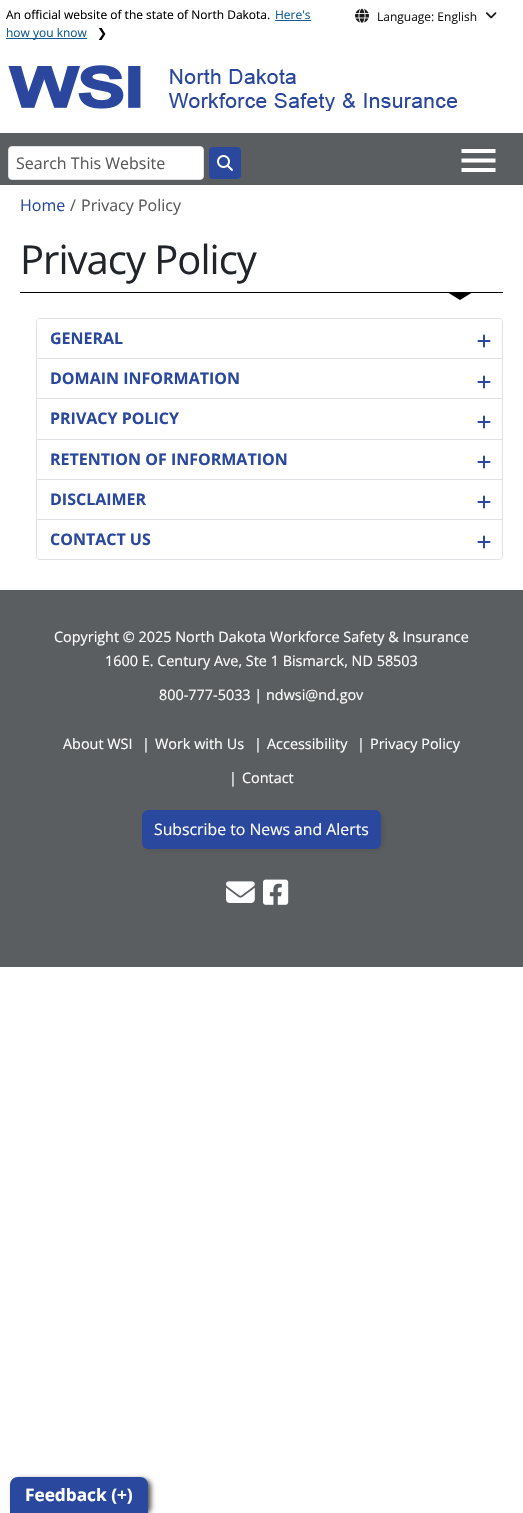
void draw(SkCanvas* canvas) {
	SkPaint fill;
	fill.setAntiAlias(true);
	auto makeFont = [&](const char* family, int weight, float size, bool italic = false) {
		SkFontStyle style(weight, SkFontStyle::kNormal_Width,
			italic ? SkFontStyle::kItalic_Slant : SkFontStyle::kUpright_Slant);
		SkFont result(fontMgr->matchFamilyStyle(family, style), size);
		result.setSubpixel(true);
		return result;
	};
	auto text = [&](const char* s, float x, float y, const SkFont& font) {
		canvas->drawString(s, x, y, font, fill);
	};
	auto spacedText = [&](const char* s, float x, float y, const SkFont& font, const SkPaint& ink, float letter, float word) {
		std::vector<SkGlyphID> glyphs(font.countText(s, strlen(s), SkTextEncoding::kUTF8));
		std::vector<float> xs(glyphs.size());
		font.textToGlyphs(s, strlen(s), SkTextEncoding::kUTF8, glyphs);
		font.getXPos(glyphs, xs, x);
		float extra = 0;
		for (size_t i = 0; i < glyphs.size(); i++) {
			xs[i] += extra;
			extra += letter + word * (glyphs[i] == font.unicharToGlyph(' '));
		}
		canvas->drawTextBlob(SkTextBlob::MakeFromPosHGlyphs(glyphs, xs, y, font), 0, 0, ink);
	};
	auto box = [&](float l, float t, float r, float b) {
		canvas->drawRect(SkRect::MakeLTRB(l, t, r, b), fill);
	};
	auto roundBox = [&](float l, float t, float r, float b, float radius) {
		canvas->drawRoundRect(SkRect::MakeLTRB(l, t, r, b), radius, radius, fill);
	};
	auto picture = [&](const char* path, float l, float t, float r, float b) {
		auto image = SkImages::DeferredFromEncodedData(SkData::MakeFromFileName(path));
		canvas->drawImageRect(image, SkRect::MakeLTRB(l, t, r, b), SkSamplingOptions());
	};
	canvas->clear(0xFFFFFFFF);
	fill.setColor(0xFF165C92);
	box(275, 20, 311, 21);
	box(6, 38, 87, 39);
	picture("image0.png", 355, 8, 369, 23);
	picture("image1.png", 485, 12, 497, 19);
	picture("image2.png", 8, 65, 458, 111);
	fill.setColor(0xFF5B5E61);
	box(0, 133, 523, 185);
	fill.setColor(0xFFFFFFFF);
	canvas->drawRoundRect(SkRect::MakeLTRB(8.5f, 146.5f, 203.5f, 179.5f), 3.5f, 3.5f, fill);
	fill.setStyle(SkPaint::kStroke_Style);
	fill.setStrokeWidth(1);
	fill.setColor(0xFFDEE2E6);
	canvas->drawRoundRect(SkRect::MakeLTRB(8.5f, 146.5f, 203.5f, 179.5f), 3.5f, 3.5f, fill);
	fill.setStyle(SkPaint::kFill_Style);
	fill.setColor(0xFF2A489E);
	roundBox(209, 147, 241, 179, 4);
	picture("image3.png", 217, 155, 233, 171);
	fill.setColor(0xFFFFFFFF);
	canvas->drawPath(SkPathBuilder().moveTo(461.5f, 172).lineTo(495.5f, 172).lineTo(495.5f, 168).lineTo(461.5f, 168).close().moveTo(461.5f, 162.5f).lineTo(495.5f, 162.5f).lineTo(495.5f, 158.5f).lineTo(461.5f, 158.5f).close().moveTo(461.5f, 149).lineTo(461.5f, 153).lineTo(495.5f, 153).lineTo(495.5f, 149).close().detach(), fill);
	fill.setColor(0xFF000000);
	box(20, 292, 503, 293);
	canvas->drawPath(SkPathBuilder().moveTo(447, 292).lineTo(473, 292).lineTo(460, 300).close().detach(), fill);
	fill.setStyle(SkPaint::kStroke_Style);
	fill.setColor(0xFFDEE2E6);
	canvas->drawPath(SkPathBuilder().moveTo(40, 318.5f).lineTo(499, 318.5f).cubicTo(501, 318.5f, 502.5f, 320, 502.5f, 322).lineTo(502.5f, 358.5f).lineTo(36.5f, 358.5f).lineTo(36.5f, 322).cubicTo(36.5f, 320, 38, 318.5f, 40, 318.5f).close().detach(), fill);
	fill.setStyle(SkPaint::kFill_Style);
	fill.setColor(0xFFFFFFFF);
	canvas->drawPath(SkPathBuilder().moveTo(40, 319).lineTo(499, 319).cubicTo(500.5f, 319, 502, 320.5f, 502, 322).lineTo(502, 358).lineTo(37, 358).lineTo(37, 322).cubicTo(37, 320.5f, 38.5f, 319, 40, 319).close().detach(), fill);
	picture("image4.png", 477, 334, 491, 348);
	fill.setColor(0xFFDEE2E6);
	box(502, 359, 503, 520);
	box(36, 398, 503, 399);
	box(36, 359, 37, 399);
	picture("image4.png", 477, 375, 491, 389);
	box(36, 439, 503, 440);
	box(36, 399, 37, 440);
	picture("image4.png", 477, 415, 491, 429);
	box(36, 479, 503, 480);
	box(36, 440, 37, 480);
	picture("image4.png", 477, 455, 491, 469);
	box(36, 519, 503, 520);
	box(36, 480, 37, 520);
	picture("image4.png", 477, 495, 491, 509);
	canvas->drawPath(SkPathBuilder(SkPathFillType::kEvenOdd).moveTo(36, 520).lineTo(503, 520).lineTo(503, 556).cubicTo(503, 558, 501, 560, 499, 560).lineTo(40, 560).cubicTo(38, 560, 36, 558, 36, 556).close().moveTo(37, 520).lineTo(502, 520).lineTo(502, 556).cubicTo(502, 558, 501, 559, 499, 559).lineTo(40, 559).cubicTo(38, 559, 37, 558, 37, 556).close().detach(), fill);
	fill.setColor(0xFFFFFFFF);
	canvas->drawPath(SkPathBuilder().moveTo(37, 520).lineTo(502, 520).lineTo(502, 556).cubicTo(502, 557.5f, 500.5f, 559, 499, 559).lineTo(40, 559).cubicTo(38.5f, 559, 37, 557.5f, 37, 556).close().detach(), fill);
	picture("image4.png", 477, 535, 491, 549);
	fill.setColor(0xFF5B5E61);
	box(0, 590, 523, 967);
	fill.setColor(0xFF555555);
	fill.setMaskFilter(SkMaskFilter::MakeBlur(kNormal_SkBlurStyle, 2.5f));
	canvas->drawRoundRect(SkRect::MakeLTRB(145, 812, 384, 851), 6, 6, fill);
	fill.setMaskFilter(nullptr);
	fill.setColor(0xFF2A489E);
	roundBox(142, 810, 381, 849, 6);
	picture("image5.png", 226, 881, 255, 903);
	picture("image6.png", 263, 879, 289, 905);
	fill.setColor(0xFF555555);
	fill.setMaskFilter(SkMaskFilter::MakeBlur(kNormal_SkBlurStyle, 2.5f));
	canvas->drawRoundRect(SkRect::MakeLTRB(13, 1479, 151, 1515), 8, 8, fill);
	fill.setMaskFilter(nullptr);
	fill.setColor(0xFF2A489E);
	canvas->drawPath(SkPathBuilder().moveTo(18, 1477).lineTo(140, 1477).cubicTo(144.5f, 1477, 148, 1480.5f, 148, 1485).lineTo(148, 1513).lineTo(10, 1513).lineTo(10, 1485).cubicTo(10, 1480.5f, 13.5f, 1477, 18, 1477).close().detach(), fill);
	auto font1 = makeFont("Open Sans", 400, 12);
	fill.setColor(0xFF000000);
	text("An official website of the state of North Dakota.", 6, 19, font1);
	fill.setColor(0xFF165C92);
	text("Here's", 275, 19, font1);
	text("how you know", 6, 37, font1);
	auto font2 = makeFont("DejaVu Sans", 400, 12);
	fill.setColor(0xFF000000);
	text("❯", 97, 37, font2);
	fill.setColor(0xFF1A1A1A);
	text("Language: English", 377, 21, font1);
	auto font3 = makeFont("Open Sans", 400, 16);
	fill.setColor(0xFF595959);
	text("Search This Website", 16, 169, font3);
	fill.setColor(0xFF2A489E);
	text("Home", 20, 211, font3);
	fill.setColor(0xFF595C5F);
	text("/", 70, 211, font3);
	fill.setColor(0xFF595959);
	text("Privacy Policy", 81, 211, font3);
	auto font4 = makeFont("Open Sans", 400, 40);
	fill.setColor(0xFF212529);
	spacedText("Privacy Policy", 20, 274, font4, fill, -1, 0);
	auto font5 = makeFont("Open Sans", 700, 16);
	fill.setColor(0xFF2A489E);
	text("GENERAL", 50, 344, font5);
	text("DOMAIN INFORMATION", 50, 384, font5);
	text("PRIVACY POLICY", 50, 424, font5);
	text("RETENTION OF INFORMATION", 50, 465, font5);
	text("DISCLAIMER", 50, 505, font5);
	text("CONTACT US", 50, 545, font5);
	auto font6 = makeFont("Open Sans", 400, 14.4f);
	fill.setColor(0xFFFFFFFF);
	text("Copyright © 2025 North Dakota Workforce Safety & Insurance", 54, 642, font6);
	text("1600 E. Century Ave, Ste 1 Bismarck, ND 58503", 105, 666, font6);
	text("800-777-5033 | ndwsi@nd.gov", 159, 700, font6);
	text("About WSI", 63, 749, font6);
	text("|", 142, 749, font6);
	text("Work with Us", 155, 749, font6);
	text("|", 254, 749, font6);
	text("Accessibility", 267, 749, font6);
	text("|", 357, 749, font6);
	text("Privacy Policy", 370, 749, font6);
	text("|", 229, 783, font6);
	text("Contact", 242, 783, font6);
	auto font7 = makeFont("Open Sans", 400, 15.8f);
	text("Subscribe to News and Alerts", 154, 835, font7);
	auto font8 = makeFont("Open Sans", 700, 17.25f);
	text("Feedback (+)", 25, 1501, font8);
}
